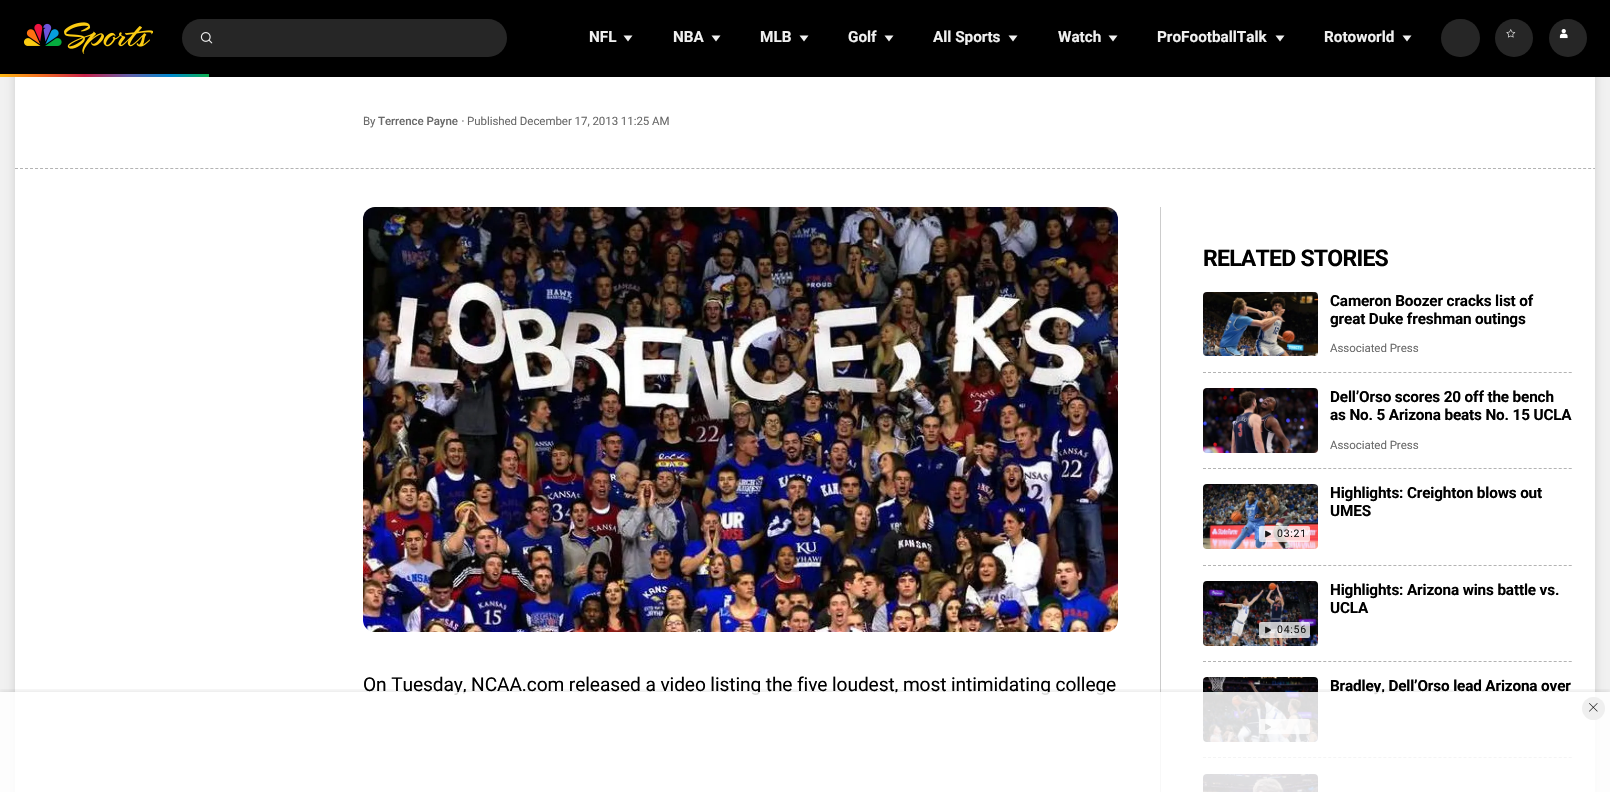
void draw(SkCanvas* canvas) {
	SkPaint fill;
	fill.setAntiAlias(true);
	auto makeFont = [&](const char* family, int weight, float size, bool italic = false) {
		SkFontStyle style(weight, SkFontStyle::kNormal_Width,
			italic ? SkFontStyle::kItalic_Slant : SkFontStyle::kUpright_Slant);
		SkFont result(fontMgr->matchFamilyStyle(family, style), size);
		result.setSubpixel(true);
		return result;
	};
	auto text = [&](const char* s, float x, float y, const SkFont& font) {
		canvas->drawString(s, x, y, font, fill);
	};
	auto spacedText = [&](const char* s, float x, float y, const SkFont& font, const SkPaint& ink, float letter, float word) {
		std::vector<SkGlyphID> glyphs(font.countText(s, strlen(s), SkTextEncoding::kUTF8));
		std::vector<float> xs(glyphs.size());
		font.textToGlyphs(s, strlen(s), SkTextEncoding::kUTF8, glyphs);
		font.getXPos(glyphs, xs, x);
		float extra = 0;
		for (size_t i = 0; i < glyphs.size(); i++) {
			xs[i] += extra;
			extra += letter + word * (glyphs[i] == font.unicharToGlyph(' '));
		}
		canvas->drawTextBlob(SkTextBlob::MakeFromPosHGlyphs(glyphs, xs, y, font), 0, 0, ink);
	};
	auto box = [&](float l, float t, float r, float b) {
		canvas->drawRect(SkRect::MakeLTRB(l, t, r, b), fill);
	};
	auto roundBox = [&](float l, float t, float r, float b, float radius) {
		canvas->drawRoundRect(SkRect::MakeLTRB(l, t, r, b), radius, radius, fill);
	};
	auto picture = [&](const char* path, float l, float t, float r, float b) {
		auto image = SkImages::DeferredFromEncodedData(SkData::MakeFromFileName(path));
		canvas->drawImageRect(image, SkRect::MakeLTRB(l, t, r, b), SkSamplingOptions());
	};
	canvas->clear(0xFFF1F1F1);
	fill.setColor(0x26000000);
	fill.setMaskFilter(SkMaskFilter::MakeBlur(kNormal_SkBlurStyle, 5));
	canvas->drawRoundRect(SkRect::MakeLTRB(15, -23, 1595, 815), 8, 8, fill);
	fill.setMaskFilter(nullptr);
	fill.setColor(0xFF000000);
	box(0, 0, 1610, 77);
	picture("image0.png", 24, 22, 153, 54);
	fill.setColor(0xFF262626);
	roundBox(182, 19, 507, 57, 19);
	picture("image1.png", 200, 32, 213, 44);
	fill.setColor(0xFFF0F0F0);
	canvas->drawPath(SkPathBuilder().moveTo(628, 41.5f).lineTo(623.5f, 35.5f).lineTo(632.5f, 35.5f).close().detach(), fill);
	canvas->drawPath(SkPathBuilder().moveTo(716, 41.5f).lineTo(711.5f, 35.5f).lineTo(720.5f, 35.5f).close().detach(), fill);
	canvas->drawPath(SkPathBuilder().moveTo(804, 41.5f).lineTo(799.5f, 35.5f).lineTo(808.5f, 35.5f).close().detach(), fill);
	canvas->drawPath(SkPathBuilder().moveTo(889, 41.5f).lineTo(884.5f, 35.5f).lineTo(893.5f, 35.5f).close().detach(), fill);
	canvas->drawPath(SkPathBuilder().moveTo(1013, 41.5f).lineTo(1008.5f, 35.5f).lineTo(1017.5f, 35.5f).close().detach(), fill);
	canvas->drawPath(SkPathBuilder().moveTo(1113, 41.5f).lineTo(1108.5f, 35.5f).lineTo(1117.5f, 35.5f).close().detach(), fill);
	canvas->drawPath(SkPathBuilder().moveTo(1280, 41.5f).lineTo(1275.5f, 35.5f).lineTo(1284.5f, 35.5f).close().detach(), fill);
	canvas->drawPath(SkPathBuilder().moveTo(1407, 41.5f).lineTo(1402.5f, 35.5f).lineTo(1411.5f, 35.5f).close().detach(), fill);
	fill.setColor(0xFF262626);
	roundBox(1441, 19, 1480, 57, 19);
	canvas->drawCircle(1514, 38, 19, fill);
	picture("image2.png", 1506, 29, 1516, 38);
	canvas->drawCircle(1568, 38, 19, fill);
	picture("image3.png", 1559, 29, 1568, 39);
	picture("image4.png", 0, 74, 209, 77);
	fill.setColor(0xFFFFFFFF);
	box(15, 77, 1595, 792);
	fill.setStyle(SkPaint::kStroke_Style);
	fill.setStrokeWidth(1);
	fill.setColor(0xFFB3B3B3);
	fill.setPathEffect(SkDashPathEffect::Make({{3, 2.01f}}, 0));
	canvas->drawPath(SkPathBuilder().moveTo(15, 168.5f).lineTo(1595, 168.5f).detach(), fill);
	fill.setPathEffect(nullptr);
	fill.setStyle(SkPaint::kFill_Style);
	fill.setColor(0xFF6A6A6A);
	canvas->drawCircle(462.9f, 121, 0.8f, fill);
	picture("image5.png", 363, 207, 1118, 632);
	fill.setColor(0xFFCCCCCC);
	box(1160, 207, 1161, 792);
	picture("image6.png", 1203, 292, 1318, 356);
	fill.setStyle(SkPaint::kStroke_Style);
	fill.setColor(0xFFB3B3B3);
	fill.setPathEffect(SkDashPathEffect::Make({{3, 2.01f}}, 0));
	canvas->drawPath(SkPathBuilder().moveTo(1203, 372.5f).lineTo(1572, 372.5f).detach(), fill);
	fill.setPathEffect(nullptr);
	picture("image7.png", 1203, 388, 1318, 453);
	fill.setPathEffect(SkDashPathEffect::Make({{3, 2.01f}}, 0));
	canvas->drawPath(SkPathBuilder().moveTo(1203, 468.5f).lineTo(1572, 468.5f).detach(), fill);
	fill.setPathEffect(nullptr);
	picture("image8.png", 1203, 484, 1318, 549);
	fill.setStyle(SkPaint::kFill_Style);
	fill.setColor(0xBFFFFFFF);
	roundBox(1259, 526, 1310, 542, 2);
	picture("image9.png", 1265, 530, 1271, 538);
	fill.setStyle(SkPaint::kStroke_Style);
	fill.setColor(0xFFB3B3B3);
	fill.setPathEffect(SkDashPathEffect::Make({{3, 2.01f}}, 0));
	canvas->drawPath(SkPathBuilder().moveTo(1203, 565.5f).lineTo(1572, 565.5f).detach(), fill);
	fill.setPathEffect(nullptr);
	picture("image10.png", 1203, 581, 1318, 646);
	fill.setStyle(SkPaint::kFill_Style);
	fill.setColor(0xBFFFFFFF);
	roundBox(1259, 622, 1310, 638, 2);
	picture("image11.png", 1265, 626, 1271, 634);
	fill.setStyle(SkPaint::kStroke_Style);
	fill.setColor(0xFFB3B3B3);
	fill.setPathEffect(SkDashPathEffect::Make({{3, 2.01f}}, 0));
	canvas->drawPath(SkPathBuilder().moveTo(1203, 661.5f).lineTo(1572, 661.5f).detach(), fill);
	fill.setPathEffect(nullptr);
	picture("image12.png", 1203, 677, 1318, 742);
	fill.setStyle(SkPaint::kFill_Style);
	fill.setColor(0xBFFFFFFF);
	roundBox(1259, 719, 1310, 734, 2);
	picture("image13.png", 1265, 723, 1271, 731);
	fill.setStyle(SkPaint::kStroke_Style);
	fill.setColor(0xFFB3B3B3);
	fill.setPathEffect(SkDashPathEffect::Make({{3, 2.01f}}, 0));
	canvas->drawPath(SkPathBuilder().moveTo(1203, 757.5f).lineTo(1572, 757.5f).detach(), fill);
	fill.setPathEffect(nullptr);
	picture("image14.png", 1203, 774, 1318, 792);
	canvas->save();
	canvas->clipRect(SkRect::MakeLTRB(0, 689, 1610, 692));
	fill.setStyle(SkPaint::kFill_Style);
	fill.setColor(0x14000000);
	fill.setMaskFilter(SkMaskFilter::MakeBlur(kNormal_SkBlurStyle, 2));
	canvas->drawRect(SkRect::MakeLTRB(0, 690, 1610, 790), fill);
	fill.setMaskFilter(nullptr);
	canvas->restore();
	auto font1 = makeFont("Roboto", 700, 15.3f);
	fill.setColor(0xFFF0F0F0);
	text("NFL", 589, 42, font1);
	text("NBA", 673, 42, font1);
	text("MLB", 760, 42, font1);
	text("Golf", 848, 42, font1);
	text("All Sports", 933, 42, font1);
	text("Watch", 1058, 42, font1);
	text("ProFootballTalk", 1157, 42, font1);
	text("Rotoworld", 1324, 42, font1);
	auto font2 = makeFont("Roboto", 400, 11.5f);
	fill.setColor(0xFF6A6A6A);
	spacedText("By", 363, 125, font2, fill, -0.05f, 0);
	auto font3 = makeFont("Roboto", 500, 11.5f);
	spacedText("Terrence Payne", 378, 125, font3, fill, -0.05f, 0);
	spacedText("Published December 17, 2013 11:25 AM", 467, 125, font2, fill, -0.05f, 0);
	auto font4 = makeFont("Roboto", 400, 19.15f);
	fill.setColor(0xFF000000);
	spacedText("On Tuesday, NCAA.com released a video listing the five loudest, most intimidating college", 363, 691, font4, fill, -0.1f, 0);
	auto font5 = makeFont("Roboto", 700, 23);
	spacedText("RELATED STORIES", 1203, 266, font5, fill, -0.75f, 0);
	spacedText("Cameron Boozer cracks list of", 1330, 306, font1, fill, -0.15f, 0);
	spacedText("great Duke freshman outings", 1330, 324, font1, fill, -0.15f, 0);
	fill.setColor(0xFF6A6A6A);
	spacedText("Associated Press", 1330, 352, font2, fill, -0.05f, 0);
	fill.setColor(0xFF000000);
	spacedText("Dell’Orso scores 20 off the bench", 1330, 402, font1, fill, -0.15f, 0);
	spacedText("as No. 5 Arizona beats No. 15 UCLA", 1330, 420, font1, fill, -0.15f, 0);
	fill.setColor(0xFF6A6A6A);
	spacedText("Associated Press", 1330, 449, font2, fill, -0.05f, 0);
	fill.setColor(0xFF000000);
	spacedText("Highlights: Creighton blows out", 1330, 498, font1, fill, -0.15f, 0);
	spacedText("UMES", 1330, 516, font1, fill, -0.15f, 0);
	auto font6 = makeFont("Roboto", 400, 10.5f);
	fill.setColor(0xFF181818);
	spacedText("03:21", 1277, 537, font6, fill, 0.75f, 0);
	fill.setColor(0xFF000000);
	spacedText("Highlights: Arizona wins battle vs.", 1330, 595, font1, fill, -0.15f, 0);
	spacedText("UCLA", 1330, 613, font1, fill, -0.15f, 0);
	fill.setColor(0xFF181818);
	spacedText("04:56", 1277, 633, font6, fill, 0.75f, 0);
	fill.setColor(0xFF000000);
	spacedText("Bradley, Dell’Orso lead Arizona over", 1330, 691, font1, fill, -0.15f, 0);
	fill.setColor(0xD9FFFFFF);
	box(0, 692, 1610, 792);
	fill.setColor(0xFFEFEFEF);
	canvas->drawCircle(1593.5f, 708.5f, 11.5f, fill);
	picture("image15.png", 1589, 703, 1598, 712);
}
